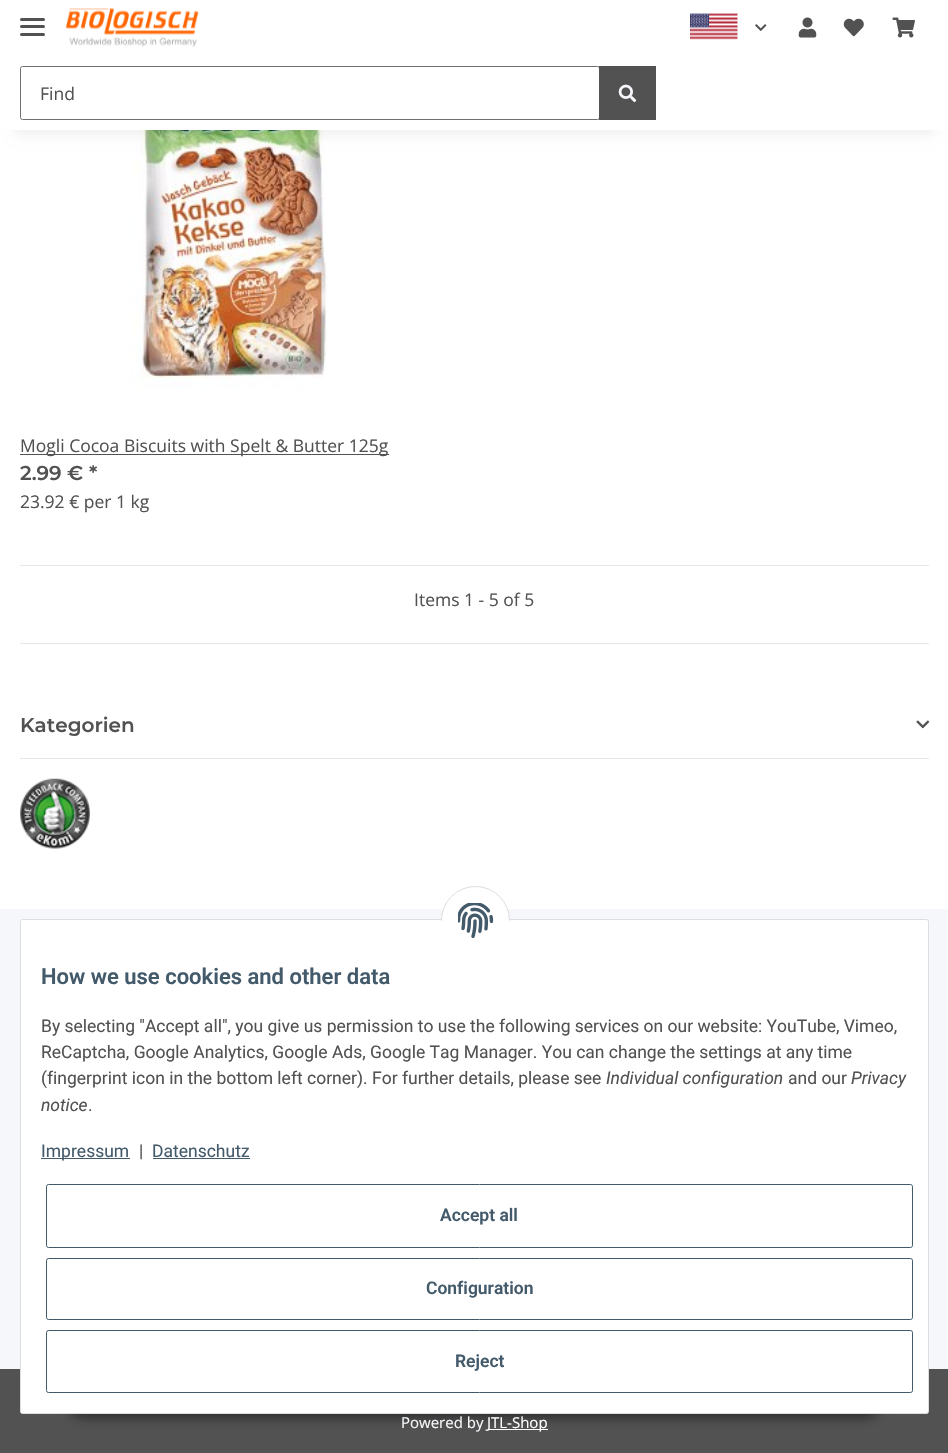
void draw(SkCanvas* canvas) {
	SkPaint fill;
	fill.setAntiAlias(true);
	auto makeFont = [&](const char* family, int weight, float size, bool italic = false) {
		SkFontStyle style(weight, SkFontStyle::kNormal_Width,
			italic ? SkFontStyle::kItalic_Slant : SkFontStyle::kUpright_Slant);
		SkFont result(fontMgr->matchFamilyStyle(family, style), size);
		result.setSubpixel(true);
		return result;
	};
	auto text = [&](const char* s, float x, float y, const SkFont& font) {
		canvas->drawString(s, x, y, font, fill);
	};
	auto box = [&](float l, float t, float r, float b) {
		canvas->drawRect(SkRect::MakeLTRB(l, t, r, b), fill);
	};
	auto roundBox = [&](float l, float t, float r, float b, float radius) {
		canvas->drawRoundRect(SkRect::MakeLTRB(l, t, r, b), radius, radius, fill);
	};
	auto picture = [&](const char* path, float l, float t, float r, float b) {
		auto image = SkImages::DeferredFromEncodedData(SkData::MakeFromFileName(path));
		canvas->drawImageRect(image, SkRect::MakeLTRB(l, t, r, b), SkSamplingOptions());
	};
	canvas->clear(0xFFF5F7FA);
	fill.setColor(0xFFFFFFFF);
	box(0, 130, 948, 909);
	picture("image7.png", 129, 130, 327, 389);
	fill.setColor(0x0F000000);
	fill.setMaskFilter(SkMaskFilter::MakeBlur(kNormal_SkBlurStyle, 5.5f));
	canvas->drawRect(SkRect::MakeLTRB(15, 35, 934, 135), fill);
	fill.setMaskFilter(nullptr);
	fill.setColor(0xFFFFFFFF);
	box(0, 0, 948, 130);
	fill.setColor(0xFF525252);
	roundBox(20, 25, 45, 28, 1.5f);
	roundBox(20, 18, 45, 21, 1.5f);
	roundBox(20, 33, 45, 36, 1.5f);
	picture("image0.png", 66, 8, 199, 47);
	picture("image1.png", 690, 13, 738, 40);
	picture("image2.png", 755, 24, 767, 31);
	picture("image3.png", 798, 17, 817, 38);
	picture("image4.png", 843, 18, 864, 37);
	picture("image5.png", 892, 17, 915, 38);
	fill.setStyle(SkPaint::kStroke_Style);
	fill.setStrokeWidth(1);
	fill.setColor(0xFF707070);
	canvas->drawRoundRect(SkRect::MakeLTRB(20.5f, 66.5f, 599.5f, 119.5f), 2, 2, fill);
	fill.setStyle(SkPaint::kFill_Style);
	fill.setColor(0xFF525252);
	box(599, 66, 656, 120);
	picture("image6.png", 618, 84, 637, 103);
	box(20, 454, 389, 455);
	fill.setColor(0xFFE6E6E6);
	box(20, 565, 929, 566);
	box(20, 643, 929, 644);
	picture("image8.png", 916, 720, 930, 729);
	box(20, 758, 929, 759);
	picture("image9.png", 20, 778, 90, 849);
	fill.setColor(0xFF525252);
	box(0, 1369, 948, 1453);
	fill.setColor(0xFFFFFFFF);
	box(488, 1429, 548, 1430);
	fill.setColor(0x73000000);
	fill.setMaskFilter(SkMaskFilter::MakeBlur(kNormal_SkBlurStyle, 6));
	canvas->drawRoundRect(SkRect::MakeLTRB(66, 1378, 883, 1418), 20, 20, fill);
	fill.setMaskFilter(nullptr);
	fill.setColor(0xFFFFFFFF);
	canvas->drawRoundRect(SkRect::MakeLTRB(20.5f, 919.5f, 928.5f, 1413.5f), 2, 2, fill);
	fill.setStyle(SkPaint::kStroke_Style);
	fill.setColor(0xFFDDDDDD);
	canvas->drawRoundRect(SkRect::MakeLTRB(20.5f, 919.5f, 928.5f, 1413.5f), 2, 2, fill);
	fill.setStyle(SkPaint::kFill_Style);
	fill.setColor(0xFFFFFFFF);
	canvas->drawCircle(475.5f, 920.5f, 34, fill);
	fill.setStyle(SkPaint::kStroke_Style);
	fill.setColor(0xFFDDDDDD);
	canvas->drawCircle(475.5f, 920.5f, 34, fill);
	fill.setStyle(SkPaint::kFill_Style);
	fill.setColor(0xFFFFFFFF);
	box(441, 921, 510, 955);
	picture("image10.png", 458, 903, 494, 939);
	fill.setColor(0xFF435A6B);
	box(41, 1158, 130, 1159);
	box(153, 1158, 250, 1159);
	fill.setStyle(SkPaint::kStroke_Style);
	canvas->drawRoundRect(SkRect::MakeLTRB(46.5f, 1184.5f, 912.5f, 1247.5f), 2, 2, fill);
	canvas->drawRoundRect(SkRect::MakeLTRB(46.5f, 1258.5f, 912.5f, 1319.5f), 2, 2, fill);
	canvas->drawRoundRect(SkRect::MakeLTRB(46.5f, 1330.5f, 912.5f, 1392.5f), 2, 2, fill);
	auto font1 = makeFont("Open Sans", 400, 17.5f);
	fill.setStyle(SkPaint::kFill_Style);
	fill.setColor(0xFF525252);
	text("Find", 40, 100, font1);
	text("Mogli Cocoa Biscuits with Spelt & Butter 125g", 20, 452, font1);
	auto font2 = makeFont("Montserrat", 600, 20);
	text("2.99 € *", 20, 480, font2);
	text("23.92 € per 1 kg", 20, 508, font1);
	text("Items 1 - 5 of 5", 414, 606, font1);
	text("Kategorien", 20, 732, font2);
	auto font3 = makeFont("Roboto", 600, 22);
	fill.setColor(0xFF435A6B);
	text("How we use cookies and other data", 41, 984, font3);
	auto font4 = makeFont("Roboto", 400, 17.5f);
	fill.setColor(0xFF525252);
	text("By selecting \"Accept all\", you give us permission to use the following services on our website: YouTube, Vimeo,", 41, 1032, font4);
	text("ReCaptcha, Google Analytics, Google Ads, Google Tag Manager. You can change the settings at any time", 41, 1058, font4);
	text("(fingerprint icon in the bottom left corner). For further details, please see", 41, 1084, font4);
	auto font5 = makeFont("Roboto", 400, 17.5f, true);
	text("Individual configuration", 606, 1084, font5);
	text("and our", 788, 1084, font4);
	text("Privacy", 851, 1084, font5);
	text("notice", 41, 1111, font5);
	text(".", 88, 1111, font4);
	fill.setColor(0xFF435A6B);
	text("Impressum", 41, 1157, font4);
	fill.setColor(0xFF525252);
	text("|", 139, 1157, font4);
	fill.setColor(0xFF435A6B);
	text("Datenschutz", 152, 1157, font4);
	auto font6 = makeFont("Roboto", 600, 17.5f);
	text("Accept all", 440, 1221, font6);
	text("Configuration", 426, 1294, font6);
	text("Reject", 455, 1367, font6);
	auto font7 = makeFont("Open Sans", 400, 15);
	fill.setColor(0xFFF5F7FA);
	text("Powered by", 401, 1428, font7);
	fill.setColor(0xFFFFFFFF);
	text("JTL-Shop", 487, 1428, font7);
}
